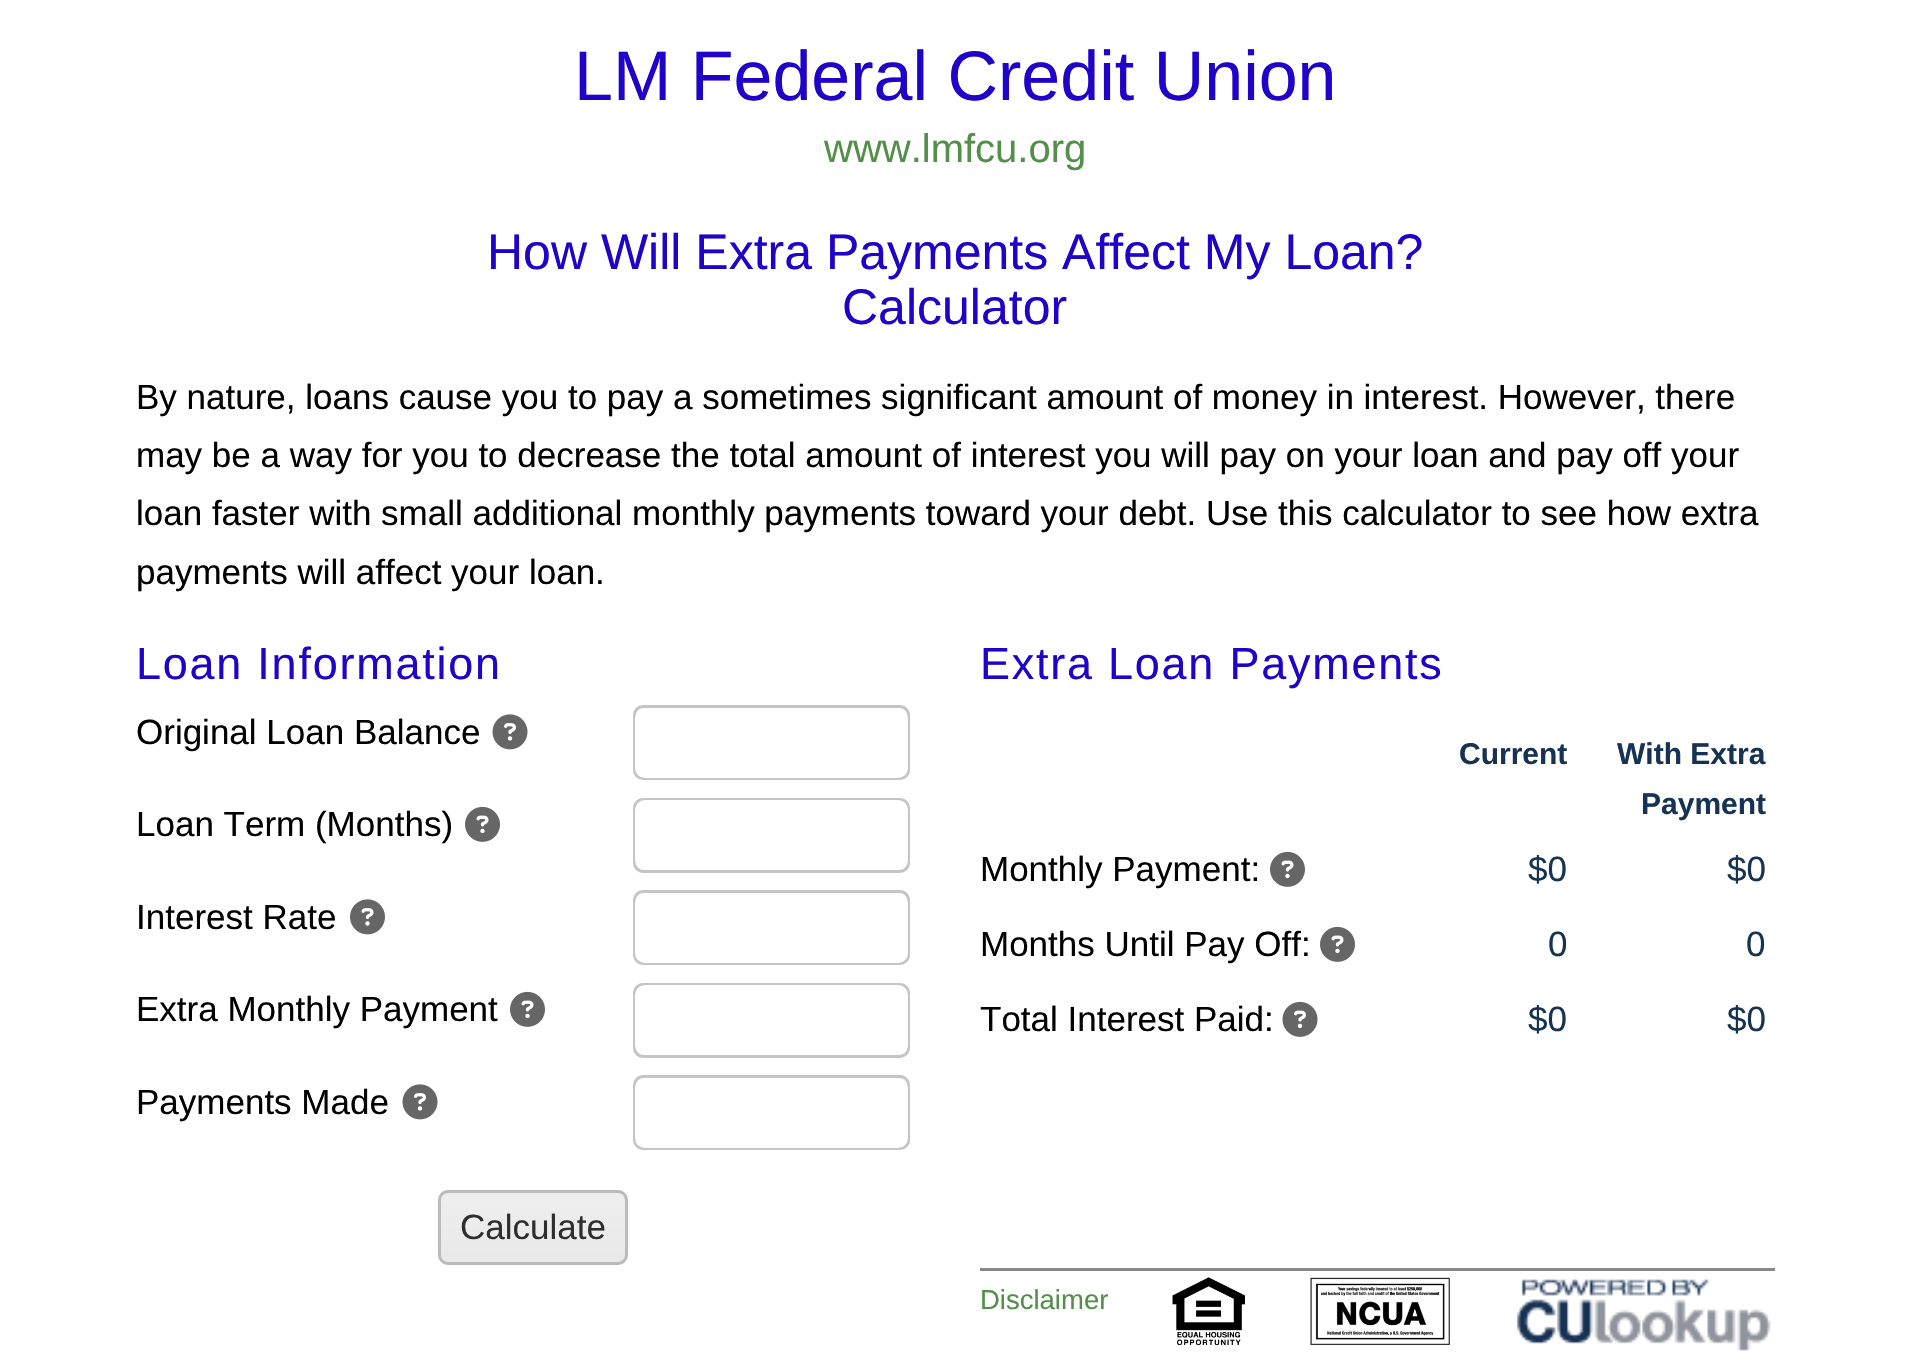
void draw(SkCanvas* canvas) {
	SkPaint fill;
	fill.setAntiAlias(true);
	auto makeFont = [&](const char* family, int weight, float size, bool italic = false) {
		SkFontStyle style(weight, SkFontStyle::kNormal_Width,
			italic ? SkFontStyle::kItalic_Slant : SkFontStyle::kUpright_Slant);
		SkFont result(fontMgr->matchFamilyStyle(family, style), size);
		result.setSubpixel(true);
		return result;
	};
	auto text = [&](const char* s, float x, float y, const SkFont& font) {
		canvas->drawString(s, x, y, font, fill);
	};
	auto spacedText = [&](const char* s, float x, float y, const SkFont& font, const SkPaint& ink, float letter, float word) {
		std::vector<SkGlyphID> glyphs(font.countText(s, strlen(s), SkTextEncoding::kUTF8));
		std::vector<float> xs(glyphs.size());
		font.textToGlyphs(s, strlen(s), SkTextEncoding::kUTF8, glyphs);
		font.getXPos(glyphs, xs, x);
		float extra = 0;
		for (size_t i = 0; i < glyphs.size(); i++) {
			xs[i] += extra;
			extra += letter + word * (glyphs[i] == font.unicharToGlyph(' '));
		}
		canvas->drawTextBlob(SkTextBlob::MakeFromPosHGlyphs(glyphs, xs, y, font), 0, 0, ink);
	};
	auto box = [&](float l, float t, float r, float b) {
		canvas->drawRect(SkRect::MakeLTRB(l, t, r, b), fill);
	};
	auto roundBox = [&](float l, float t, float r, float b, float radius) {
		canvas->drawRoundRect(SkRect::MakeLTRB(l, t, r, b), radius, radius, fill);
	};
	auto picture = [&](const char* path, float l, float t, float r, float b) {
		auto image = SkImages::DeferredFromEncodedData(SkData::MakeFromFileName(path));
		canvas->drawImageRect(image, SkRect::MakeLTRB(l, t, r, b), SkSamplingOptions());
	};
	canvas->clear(0xFFFFFFFF);
	picture("image0.png", 492, 714, 528, 750);
	fill.setColor(0xFFECECEC);
	roundBox(633, 705, 910, 780, 10);
	canvas->save();
	canvas->clipPath(SkPathBuilder().moveTo(643, 705).lineTo(900, 705).cubicTo(905.5f, 705, 910, 709.5f, 910, 715).lineTo(910, 770).cubicTo(910, 775.5f, 905.5f, 780, 900, 780).lineTo(643, 780).cubicTo(637.5f, 780, 633, 775.5f, 633, 770).lineTo(633, 715).cubicTo(633, 709.5f, 637.5f, 705, 643, 705).close().detach(), true);
	{
		const SkColor colors[] = {0x40FFFFFF, 0x00FFFFFF};
		const float stops[] = {0, 1};
		const SkPoint ends[] = {{771, 708}, {771, 778}};
		fill.setShader(SkGradientShader::MakeLinear(ends, colors, stops, 2, SkTileMode::kClamp));
		fill.setAlpha(255);
	}
	box(633, 708, 910, 772);
	canvas->restore();
	fill.setStyle(SkPaint::kStroke_Style);
	fill.setStrokeWidth(3);
	fill.setShader(nullptr);
	fill.setColor(0xFFC5C5C5);
	canvas->drawRoundRect(SkRect::MakeLTRB(634.5f, 706.5f, 908.5f, 778.5f), 8.5f, 8.5f, fill);
	fill.setStyle(SkPaint::kFill_Style);
	fill.setColor(0xFFFFFFFF);
	roundBox(635, 708, 908, 778, 10);
	picture("image1.png", 465, 806, 500, 842);
	fill.setColor(0xFFECECEC);
	roundBox(633, 798, 910, 873, 10);
	canvas->save();
	canvas->clipPath(SkPathBuilder().moveTo(643, 798).lineTo(900, 798).cubicTo(905.5f, 798, 910, 802.5f, 910, 808).lineTo(910, 863).cubicTo(910, 868.5f, 905.5f, 873, 900, 873).lineTo(643, 873).cubicTo(637.5f, 873, 633, 868.5f, 633, 863).lineTo(633, 808).cubicTo(633, 802.5f, 637.5f, 798, 643, 798).close().detach(), true);
	{
		const SkColor colors[] = {0x40FFFFFF, 0x00FFFFFF};
		const float stops[] = {0, 1};
		const SkPoint ends[] = {{771, 800}, {771, 870}};
		fill.setShader(SkGradientShader::MakeLinear(ends, colors, stops, 2, SkTileMode::kClamp));
		fill.setAlpha(255);
	}
	box(633, 800, 910, 864);
	canvas->restore();
	fill.setStyle(SkPaint::kStroke_Style);
	fill.setShader(nullptr);
	fill.setColor(0xFFC5C5C5);
	canvas->drawRoundRect(SkRect::MakeLTRB(634.5f, 799.5f, 908.5f, 871.5f), 8.5f, 8.5f, fill);
	fill.setStyle(SkPaint::kFill_Style);
	fill.setColor(0xFFFFFFFF);
	roundBox(635, 800, 908, 870, 10);
	picture("image2.png", 350, 899, 385, 935);
	fill.setColor(0xFFECECEC);
	roundBox(633, 890, 910, 965, 10);
	canvas->save();
	canvas->clipPath(SkPathBuilder().moveTo(643, 890).lineTo(900, 890).cubicTo(905.5f, 890, 910, 894.5f, 910, 900).lineTo(910, 955).cubicTo(910, 960.5f, 905.5f, 965, 900, 965).lineTo(643, 965).cubicTo(637.5f, 965, 633, 960.5f, 633, 955).lineTo(633, 900).cubicTo(633, 894.5f, 637.5f, 890, 643, 890).close().detach(), true);
	{
		const SkColor colors[] = {0x40FFFFFF, 0x00FFFFFF};
		const float stops[] = {0, 1};
		const SkPoint ends[] = {{771, 893}, {771, 963}};
		fill.setShader(SkGradientShader::MakeLinear(ends, colors, stops, 2, SkTileMode::kClamp));
		fill.setAlpha(255);
	}
	box(633, 893, 910, 957);
	canvas->restore();
	fill.setStyle(SkPaint::kStroke_Style);
	fill.setShader(nullptr);
	fill.setColor(0xFFC5C5C5);
	canvas->drawRoundRect(SkRect::MakeLTRB(634.5f, 891.5f, 908.5f, 963.5f), 8.5f, 8.5f, fill);
	fill.setStyle(SkPaint::kFill_Style);
	fill.setColor(0xFFFFFFFF);
	roundBox(635, 893, 908, 963, 10);
	picture("image1.png", 510, 991, 545, 1027);
	fill.setColor(0xFFECECEC);
	roundBox(633, 983, 910, 1058, 10);
	canvas->save();
	canvas->clipPath(SkPathBuilder().moveTo(643, 983).lineTo(900, 983).cubicTo(905.5f, 983, 910, 987.5f, 910, 993).lineTo(910, 1048).cubicTo(910, 1053.5f, 905.5f, 1058, 900, 1058).lineTo(643, 1058).cubicTo(637.5f, 1058, 633, 1053.5f, 633, 1048).lineTo(633, 993).cubicTo(633, 987.5f, 637.5f, 983, 643, 983).close().detach(), true);
	{
		const SkColor colors[] = {0x40FFFFFF, 0x00FFFFFF};
		const float stops[] = {0, 1};
		const SkPoint ends[] = {{771, 985}, {771, 1055}};
		fill.setShader(SkGradientShader::MakeLinear(ends, colors, stops, 2, SkTileMode::kClamp));
		fill.setAlpha(255);
	}
	box(633, 985, 910, 1049);
	canvas->restore();
	fill.setStyle(SkPaint::kStroke_Style);
	fill.setShader(nullptr);
	fill.setColor(0xFFC5C5C5);
	canvas->drawRoundRect(SkRect::MakeLTRB(634.5f, 984.5f, 908.5f, 1056.5f), 8.5f, 8.5f, fill);
	fill.setStyle(SkPaint::kFill_Style);
	fill.setColor(0xFFFFFFFF);
	roundBox(635, 985, 908, 1055, 10);
	picture("image0.png", 402, 1084, 438, 1120);
	fill.setColor(0xFFECECEC);
	roundBox(633, 1075, 910, 1150, 10);
	canvas->save();
	canvas->clipPath(SkPathBuilder().moveTo(643, 1075).lineTo(900, 1075).cubicTo(905.5f, 1075, 910, 1079.5f, 910, 1085).lineTo(910, 1140).cubicTo(910, 1145.5f, 905.5f, 1150, 900, 1150).lineTo(643, 1150).cubicTo(637.5f, 1150, 633, 1145.5f, 633, 1140).lineTo(633, 1085).cubicTo(633, 1079.5f, 637.5f, 1075, 643, 1075).close().detach(), true);
	{
		const SkColor colors[] = {0x40FFFFFF, 0x00FFFFFF};
		const float stops[] = {0, 1};
		const SkPoint ends[] = {{771, 1078}, {771, 1148}};
		fill.setShader(SkGradientShader::MakeLinear(ends, colors, stops, 2, SkTileMode::kClamp));
		fill.setAlpha(255);
	}
	box(633, 1078, 910, 1142);
	canvas->restore();
	fill.setStyle(SkPaint::kStroke_Style);
	fill.setShader(nullptr);
	fill.setColor(0xFFC5C5C5);
	canvas->drawRoundRect(SkRect::MakeLTRB(634.5f, 1076.5f, 908.5f, 1148.5f), 8.5f, 8.5f, fill);
	fill.setStyle(SkPaint::kFill_Style);
	fill.setColor(0xFFFFFFFF);
	roundBox(635, 1078, 908, 1148, 10);
	fill.setColor(0xFFE9E9E9);
	roundBox(438, 1190, 628, 1265, 10);
	canvas->save();
	canvas->clipPath(SkPathBuilder().moveTo(448, 1190).lineTo(618, 1190).cubicTo(623.5f, 1190, 628, 1194.5f, 628, 1200).lineTo(628, 1255).cubicTo(628, 1260.5f, 623.5f, 1265, 618, 1265).lineTo(448, 1265).cubicTo(442.5f, 1265, 438, 1260.5f, 438, 1255).lineTo(438, 1200).cubicTo(438, 1194.5f, 442.5f, 1190, 448, 1190).close().detach(), true);
	{
		const SkColor colors[] = {0x40FFFFFF, 0x00FFFFFF};
		const float stops[] = {0, 1};
		const SkPoint ends[] = {{533, 1193}, {533, 1263}};
		fill.setShader(SkGradientShader::MakeLinear(ends, colors, stops, 2, SkTileMode::kClamp));
		fill.setAlpha(255);
	}
	box(438, 1193, 628, 1257);
	canvas->restore();
	fill.setStyle(SkPaint::kStroke_Style);
	fill.setShader(nullptr);
	fill.setColor(0xFFBBBBBB);
	canvas->drawRoundRect(SkRect::MakeLTRB(439.5f, 1191.5f, 626.5f, 1263.5f), 8.5f, 8.5f, fill);
	picture("image1.png", 1270, 851, 1305, 887);
	picture("image1.png", 1320, 926, 1355, 962);
	picture("image3.png", 1282, 1001, 1318, 1037);
	fill.setStyle(SkPaint::kFill_Style);
	fill.setColor(0xFF898A8D);
	box(980, 1268, 1775, 1271);
	picture("image4.png", 1172, 1277, 1245, 1345);
	picture("image5.png", 1310, 1277, 1450, 1345);
	picture("image6.png", 1516, 1279, 1771, 1351);
	auto font1 = makeFont("Liberation Sans", 400, 70);
	fill.setColor(0xFF1F03C9);
	text("LM Federal Credit Union", 574, 100, font1);
	auto font2 = makeFont("Liberation Sans", 400, 40);
	fill.setColor(0xFF528F49);
	text("www.lmfcu.org", 824, 162, font2);
	auto font3 = makeFont("Liberation Sans", 400, 50);
	fill.setColor(0xFF1F03C9);
	text("How Will Extra Payments Affect My Loan?", 487, 269, font3);
	text("Calculator", 842, 324, font3);
	auto font4 = makeFont("Liberation Sans", 400, 35);
	fill.setColor(0xFF000000);
	text("By nature, loans cause you to pay a sometimes significant amount of money in interest. However, there", 136, 409, font4);
	text("may be a way for you to decrease the total amount of interest you will pay on your loan and pay off your", 136, 467, font4);
	text("loan faster with small additional monthly payments toward your debt. Use this calculator to see how extra", 136, 525, font4);
	text("payments will affect your loan.", 136, 584, font4);
	auto font5 = makeFont("Liberation Sans", 400, 45);
	fill.setColor(0xFF1F03C9);
	spacedText("Loan Information", 136, 679, font5, fill, 1.75f, 0);
	fill.setColor(0xFF000000);
	text("Original Loan Balance", 136, 744, font4);
	text("Loan Term (Months)", 136, 836, font4);
	text("Interest Rate", 136, 929, font4);
	text("Extra Monthly Payment", 136, 1021, font4);
	text("Payments Made", 136, 1114, font4);
	fill.setColor(0xFF2E2E2E);
	text("Calculate", 460, 1239, font4);
	fill.setColor(0xFF1F03C9);
	spacedText("Extra Loan Payments", 980, 679, font5, fill, 1.75f, 0);
	auto font6 = makeFont("Liberation Sans", 700, 30);
	fill.setColor(0xFF173354);
	text("Current", 1459, 764, font6);
	text("With Extra", 1617, 764, font6);
	text("Payment", 1641, 814, font6);
	fill.setColor(0xFF000000);
	text("Monthly Payment:", 980, 881, font4);
	fill.setColor(0xFF173354);
	text("$0", 1528, 881, font4);
	text("$0", 1727, 881, font4);
	fill.setColor(0xFF000000);
	text("Months Until Pay Off:", 980, 956, font4);
	fill.setColor(0xFF173354);
	text("0", 1548, 956, font4);
	text("0", 1746, 956, font4);
	fill.setColor(0xFF000000);
	text("Total Interest Paid:", 980, 1031, font4);
	fill.setColor(0xFF173354);
	text("$0", 1528, 1031, font4);
	text("$0", 1727, 1031, font4);
	auto font7 = makeFont("Liberation Sans", 400, 27.5f);
	fill.setColor(0xFF528F49);
	text("Disclaimer", 980, 1309, font7);
}
